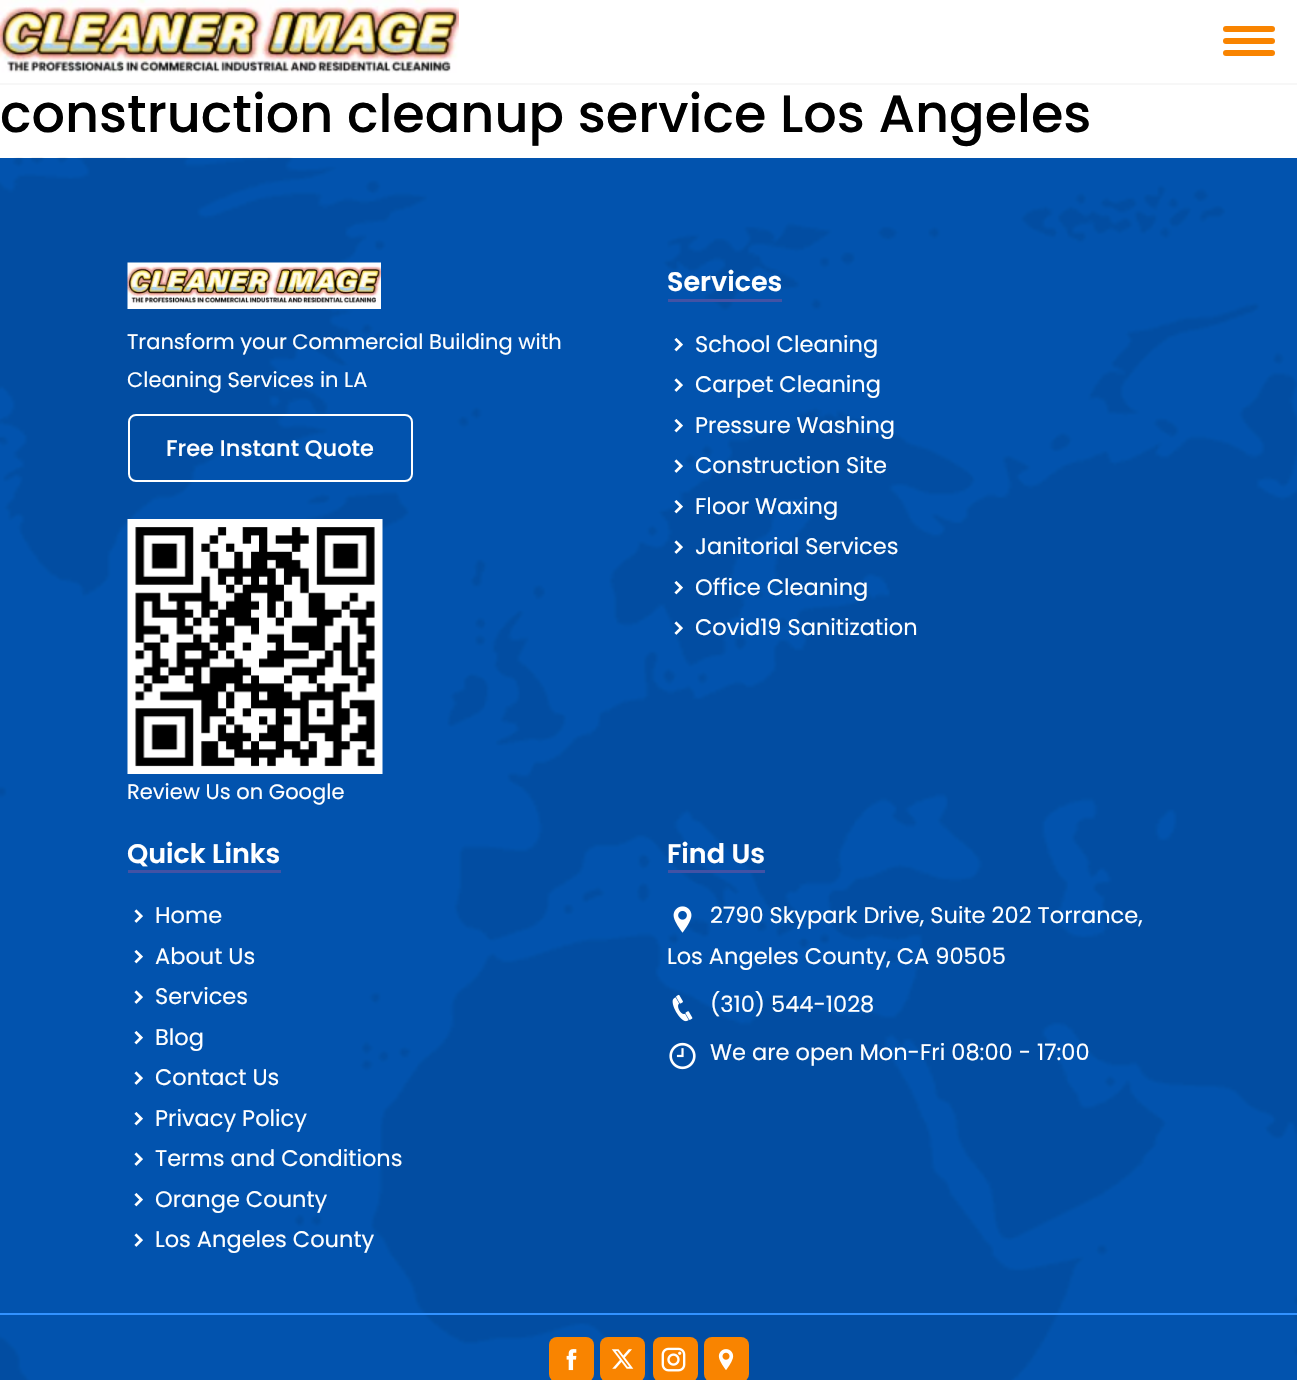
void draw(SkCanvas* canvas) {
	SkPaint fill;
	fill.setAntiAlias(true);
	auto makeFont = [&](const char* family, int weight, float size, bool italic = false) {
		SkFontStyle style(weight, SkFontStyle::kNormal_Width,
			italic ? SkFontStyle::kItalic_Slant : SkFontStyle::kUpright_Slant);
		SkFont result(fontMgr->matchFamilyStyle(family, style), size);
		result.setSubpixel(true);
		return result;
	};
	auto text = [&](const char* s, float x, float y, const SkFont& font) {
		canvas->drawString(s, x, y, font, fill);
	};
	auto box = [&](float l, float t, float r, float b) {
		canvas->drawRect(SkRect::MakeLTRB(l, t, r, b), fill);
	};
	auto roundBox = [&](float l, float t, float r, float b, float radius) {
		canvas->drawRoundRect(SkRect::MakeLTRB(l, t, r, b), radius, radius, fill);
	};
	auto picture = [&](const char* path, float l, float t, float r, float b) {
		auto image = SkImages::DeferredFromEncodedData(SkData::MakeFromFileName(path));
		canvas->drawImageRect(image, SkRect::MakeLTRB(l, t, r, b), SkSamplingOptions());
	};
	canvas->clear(0xFFFFFFFF);
	picture("image0.png", 0, 0, 459, 73);
	fill.setColor(0x08000000);
	box(0, 83, 1297, 85);
	fill.setColor(0xFFF98400);
	roundBox(1223, 26, 1275, 32, 3);
	roundBox(1223, 38, 1275, 44, 3);
	roundBox(1223, 50, 1275, 56, 3);
	fill.setColor(0xFF0253AE);
	box(0, 158, 1297, 1380);
	picture("image1.png", 0, 157, 1297, 1380);
	picture("image2.png", 127, 262, 381, 309);
	fill.setStyle(SkPaint::kStroke_Style);
	fill.setStrokeWidth(2);
	fill.setColor(0xFFFFFFFF);
	canvas->drawRoundRect(SkRect::MakeLTRB(129, 415, 412, 481), 7, 7, fill);
	picture("image3.png", 127, 519, 383, 774);
	fill.setStyle(SkPaint::kFill_Style);
	fill.setColor(0xFF4252A5);
	box(668, 299, 782, 302);
	picture("image4.png", 674, 338, 683, 352);
	picture("image5.png", 674, 378, 683, 392);
	picture("image4.png", 674, 419, 683, 433);
	picture("image5.png", 674, 459, 683, 473);
	picture("image6.png", 674, 500, 683, 514);
	picture("image7.png", 674, 540, 683, 554);
	picture("image8.png", 674, 581, 683, 595);
	picture("image9.png", 674, 621, 683, 635);
	box(128, 870, 281, 873);
	picture("image5.png", 134, 909, 143, 923);
	picture("image4.png", 134, 950, 143, 964);
	picture("image5.png", 134, 990, 143, 1004);
	picture("image4.png", 134, 1031, 143, 1045);
	picture("image5.png", 134, 1071, 143, 1085);
	picture("image4.png", 134, 1112, 143, 1126);
	picture("image5.png", 134, 1152, 143, 1166);
	picture("image4.png", 134, 1193, 143, 1207);
	picture("image5.png", 134, 1233, 143, 1247);
	box(668, 870, 765, 873);
	picture("image10.png", 673, 906, 692, 933);
	picture("image11.png", 672, 994, 693, 1022);
	picture("image12.png", 669, 1042, 696, 1070);
	fill.setColor(0xFF3292FF);
	box(0, 1313, 1297, 1315);
	fill.setColor(0xFFF98400);
	roundBox(549, 1337, 594, 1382, 8);
	picture("image13.png", 566, 1349, 577, 1371);
	roundBox(600, 1337, 645, 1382, 8);
	picture("image14.png", 611, 1349, 634, 1369);
	roundBox(653, 1337, 698, 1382, 8);
	picture("image15.png", 661, 1347, 686, 1372);
	roundBox(704, 1337, 749, 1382, 8);
	picture("image16.png", 718, 1349, 734, 1370);
	auto font1 = makeFont("Poppins", 500, 52.5f);
	fill.setColor(0xFF000000);
	text("construction cleanup service Los Angeles", 0, 132, font1);
	auto font2 = makeFont("Poppins", 400, 21);
	fill.setColor(0xFFFFFFFF);
	text("Transform your Commercial Building with", 127, 349, font2);
	text("Cleaning Services in LA", 127, 387, font2);
	auto font3 = makeFont("Poppins", 500, 22.5f);
	text("Free Instant Quote", 166, 456, font3);
	text("Review Us on Google", 127, 799, font2);
	auto font4 = makeFont("Poppins", 600, 27);
	text("Services", 667, 291, font4);
	auto font5 = makeFont("Poppins", 400, 22.5f);
	text("School Cleaning", 695, 352, font5);
	text("Carpet Cleaning", 695, 392, font5);
	text("Pressure Washing", 695, 433, font5);
	text("Construction Site", 695, 473, font5);
	text("Floor Waxing", 695, 514, font5);
	text("Janitorial Services", 695, 554, font5);
	text("Office Cleaning", 695, 595, font5);
	text("Covid19 Sanitization", 695, 635, font5);
	text("Quick Links", 127, 863, font4);
	text("Home", 155, 923, font5);
	text("About Us", 155, 964, font5);
	text("Services", 155, 1004, font5);
	text("Blog", 155, 1045, font5);
	text("Contact Us", 155, 1085, font5);
	text("Privacy Policy", 155, 1126, font5);
	text("Terms and Conditions", 155, 1166, font5);
	text("Orange County", 155, 1207, font5);
	text("Los Angeles County", 155, 1247, font5);
	text("Find Us", 667, 863, font4);
	text("2790 Skypark Drive, Suite 202 Torrance,", 710, 923, font5);
	text("Los Angeles County, CA 90505", 667, 964, font5);
	text("(310) 544-1028", 710, 1012, font5);
	text("We are open Mon-Fri 08:00 - 17:00", 710, 1060, font5);
}
